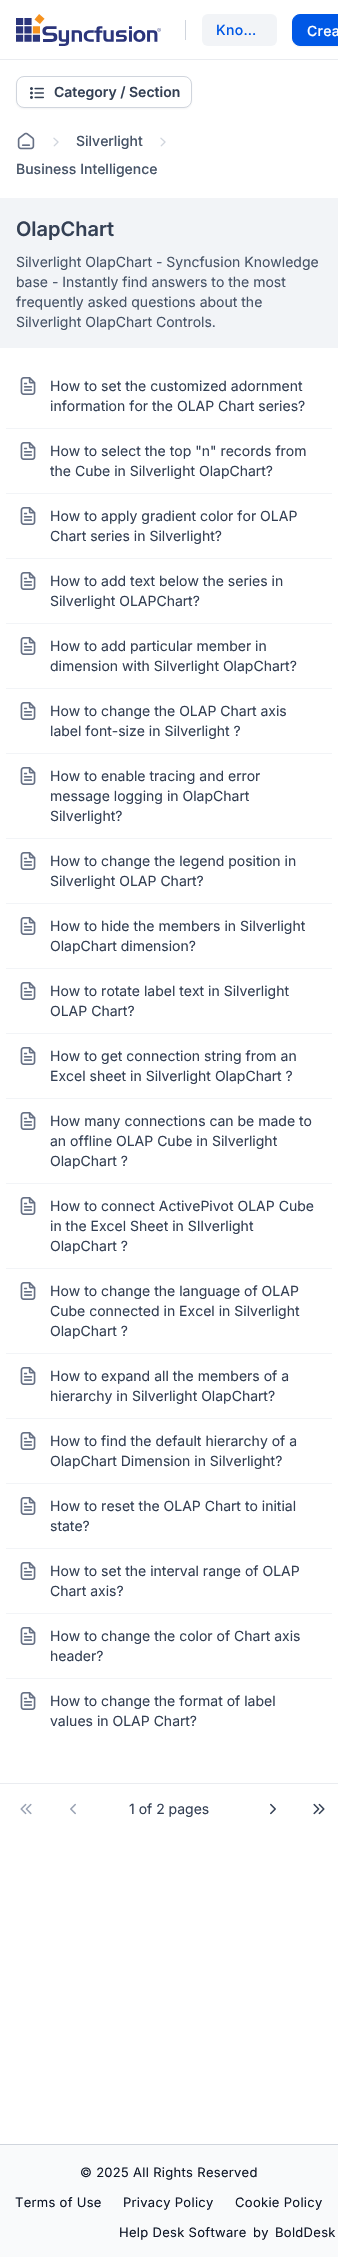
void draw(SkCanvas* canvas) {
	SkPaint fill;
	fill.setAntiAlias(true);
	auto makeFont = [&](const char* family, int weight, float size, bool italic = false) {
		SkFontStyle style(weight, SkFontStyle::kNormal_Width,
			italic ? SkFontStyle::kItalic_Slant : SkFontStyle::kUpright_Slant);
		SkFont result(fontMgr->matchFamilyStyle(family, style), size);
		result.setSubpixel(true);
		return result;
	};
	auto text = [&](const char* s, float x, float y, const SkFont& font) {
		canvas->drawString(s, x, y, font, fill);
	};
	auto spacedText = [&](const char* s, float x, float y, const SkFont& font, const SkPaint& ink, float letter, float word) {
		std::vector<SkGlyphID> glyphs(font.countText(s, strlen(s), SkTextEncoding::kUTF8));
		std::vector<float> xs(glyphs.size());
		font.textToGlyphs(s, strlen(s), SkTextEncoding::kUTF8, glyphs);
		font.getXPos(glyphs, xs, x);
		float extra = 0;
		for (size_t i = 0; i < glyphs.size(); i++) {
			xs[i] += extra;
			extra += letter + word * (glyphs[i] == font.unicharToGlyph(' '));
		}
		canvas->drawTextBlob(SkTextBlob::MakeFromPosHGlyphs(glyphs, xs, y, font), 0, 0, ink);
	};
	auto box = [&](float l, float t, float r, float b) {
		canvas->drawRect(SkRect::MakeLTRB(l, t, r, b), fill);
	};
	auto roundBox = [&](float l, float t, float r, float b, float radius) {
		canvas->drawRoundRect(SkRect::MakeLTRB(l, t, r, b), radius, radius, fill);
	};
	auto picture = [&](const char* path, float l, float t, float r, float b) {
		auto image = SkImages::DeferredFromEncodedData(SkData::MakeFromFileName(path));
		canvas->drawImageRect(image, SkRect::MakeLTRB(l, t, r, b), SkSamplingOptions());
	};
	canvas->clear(0xFFFFFFFF);
	fill.setColor(0xFFEAECF0);
	box(0, 59, 338, 60);
	picture("image0.png", 16, 14, 161, 46);
	fill.setColor(0xFFD0D5DD);
	box(185, 20, 186, 40);
	fill.setColor(0xFFF2F4F7);
	roundBox(202, 14, 277, 46, 6);
	fill.setColor(0x0D101828);
	fill.setMaskFilter(SkMaskFilter::MakeBlur(kNormal_SkBlurStyle, 1));
	canvas->drawRoundRect(SkRect::MakeLTRB(292, 15, 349, 47), 8, 8, fill);
	fill.setMaskFilter(nullptr);
	fill.setColor(0xFF0058E6);
	canvas->drawRoundRect(SkRect::MakeLTRB(292.5f, 14.5f, 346.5f, 45.5f), 7.5f, 7.5f, fill);
	fill.setStyle(SkPaint::kStroke_Style);
	fill.setStrokeWidth(1);
	canvas->drawRoundRect(SkRect::MakeLTRB(292.5f, 14.5f, 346.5f, 45.5f), 7.5f, 7.5f, fill);
	fill.setStyle(SkPaint::kFill_Style);
	fill.setColor(0x0D101828);
	fill.setMaskFilter(SkMaskFilter::MakeBlur(kNormal_SkBlurStyle, 1));
	canvas->drawRoundRect(SkRect::MakeLTRB(16, 77, 192, 109), 8, 8, fill);
	fill.setMaskFilter(nullptr);
	fill.setColor(0xFFFFFFFF);
	canvas->drawRoundRect(SkRect::MakeLTRB(16.5f, 76.5f, 191.5f, 107.5f), 7.5f, 7.5f, fill);
	fill.setStyle(SkPaint::kStroke_Style);
	fill.setColor(0xFFD0D5DD);
	canvas->drawRoundRect(SkRect::MakeLTRB(16.5f, 76.5f, 191.5f, 107.5f), 7.5f, 7.5f, fill);
	picture("image1.png", 30, 87, 44, 99);
	picture("image2.png", 17, 132, 35, 150);
	picture("image3.png", 53, 137, 59, 147);
	picture("image3.png", 160, 137, 166, 147);
	fill.setStyle(SkPaint::kFill_Style);
	fill.setColor(0xFFF2F4F7);
	box(0, 198, 338, 348);
	box(6, 428, 332, 429);
	picture("image4.png", 20, 377, 36, 395);
	box(6, 493, 332, 494);
	picture("image4.png", 20, 442, 36, 460);
	box(6, 558, 332, 559);
	picture("image4.png", 20, 507, 36, 525);
	box(6, 623, 332, 624);
	picture("image4.png", 20, 572, 36, 590);
	box(6, 688, 332, 689);
	picture("image4.png", 20, 637, 36, 655);
	box(6, 753, 332, 754);
	picture("image4.png", 20, 702, 36, 720);
	box(6, 838, 332, 839);
	picture("image4.png", 20, 767, 36, 785);
	box(6, 903, 332, 904);
	picture("image4.png", 20, 852, 36, 870);
	box(6, 968, 332, 969);
	picture("image4.png", 20, 917, 36, 935);
	box(6, 1033, 332, 1034);
	picture("image4.png", 20, 982, 36, 1000);
	box(6, 1098, 332, 1099);
	picture("image4.png", 20, 1047, 36, 1065);
	box(6, 1183, 332, 1184);
	picture("image4.png", 20, 1112, 36, 1130);
	box(6, 1268, 332, 1269);
	picture("image4.png", 20, 1197, 36, 1215);
	box(6, 1353, 332, 1354);
	picture("image4.png", 20, 1282, 36, 1300);
	box(6, 1418, 332, 1419);
	picture("image4.png", 20, 1367, 36, 1385);
	box(6, 1483, 332, 1484);
	picture("image4.png", 20, 1432, 36, 1450);
	box(6, 1548, 332, 1549);
	picture("image4.png", 20, 1497, 36, 1515);
	box(6, 1613, 332, 1614);
	picture("image4.png", 20, 1562, 36, 1580);
	box(6, 1678, 332, 1679);
	picture("image4.png", 20, 1627, 36, 1645);
	picture("image4.png", 20, 1692, 36, 1710);
	fill.setColor(0xFFEAECF0);
	box(0, 1783, 338, 1784);
	picture("image5.png", 20, 1803, 32, 1815);
	picture("image6.png", 70, 1803, 76, 1815);
	picture("image7.png", 270, 1803, 276, 1815);
	picture("image8.png", 313, 1803, 325, 1815);
	fill.setColor(0xFFF9FAFB);
	box(0, 2145, 338, 2257);
	fill.setColor(0xFFD0D5DD);
	box(0, 2144, 338, 2145);
	auto font1 = makeFont("Inter", 500, 14);
	fill.setColor(0xFF0058E6);
	spacedText("Kno…", 216, 35, font1, fill, 0.3f, 0);
	fill.setColor(0xFFFFFFFF);
	spacedText("Crea", 307, 36, font1, fill, 0.3f, 0);
	auto font2 = makeFont("Inter", 600, 14);
	fill.setColor(0xFF344054);
	text("Category / Section", 54, 97, font2);
	fill.setColor(0xFF475467);
	text("Silverlight", 76, 146, font1);
	text("Business Intelligence", 16, 174, font1);
	auto font3 = makeFont("Inter", 600, 20);
	fill.setColor(0xFF344054);
	text("OlapChart", 16, 236, font3);
	auto font4 = makeFont("Inter", 400, 14);
	fill.setColor(0xFF475467);
	text("Silverlight OlapChart - Syncfusion Knowledge", 16, 267, font4);
	text("base - Instantly find answers to the most", 16, 287, font4);
	text("frequently asked questions about the", 16, 307, font4);
	text("Silverlight OlapChart Controls.", 16, 327, font4);
	fill.setColor(0xFF344054);
	text("How to set the customized adornment", 50, 391, font4);
	text("information for the OLAP Chart series?", 50, 411, font4);
	text("How to select the top \"n\" records from", 50, 456, font4);
	text("the Cube in Silverlight OlapChart?", 50, 476, font4);
	text("How to apply gradient color for OLAP", 50, 521, font4);
	text("Chart series in Silverlight?", 50, 541, font4);
	text("How to add text below the series in", 50, 586, font4);
	text("Silverlight OLAPChart?", 50, 606, font4);
	text("How to add particular member in", 50, 651, font4);
	text("dimension with Silverlight OlapChart?", 50, 671, font4);
	text("How to change the OLAP Chart axis", 50, 716, font4);
	text("label font-size in Silverlight ?", 50, 736, font4);
	text("How to enable tracing and error", 50, 781, font4);
	text("message logging in OlapChart", 50, 801, font4);
	text("Silverlight?", 50, 821, font4);
	text("How to change the legend position in", 50, 866, font4);
	text("Silverlight OLAP Chart?", 50, 886, font4);
	text("How to hide the members in Silverlight", 50, 931, font4);
	text("OlapChart dimension?", 50, 951, font4);
	text("How to rotate label text in Silverlight", 50, 996, font4);
	text("OLAP Chart?", 50, 1016, font4);
	text("How to get connection string from an", 50, 1061, font4);
	text("Excel sheet in Silverlight OlapChart ?", 50, 1081, font4);
	text("How many connections can be made to", 50, 1126, font4);
	text("an offline OLAP Cube in Silverlight", 50, 1146, font4);
	text("OlapChart ?", 50, 1166, font4);
	text("How to connect ActivePivot OLAP Cube", 50, 1211, font4);
	text("in the Excel Sheet in SIlverlight", 50, 1231, font4);
	text("OlapChart ?", 50, 1251, font4);
	text("How to change the language of OLAP", 50, 1296, font4);
	text("Cube connected in Excel in Silverlight", 50, 1316, font4);
	text("OlapChart ?", 50, 1336, font4);
	text("How to expand all the members of a", 50, 1381, font4);
	text("hierarchy in Silverlight OlapChart?", 50, 1401, font4);
	text("How to find the default hierarchy of a", 50, 1446, font4);
	text("OlapChart Dimension in Silverlight?", 50, 1466, font4);
	text("How to reset the OLAP Chart to initial", 50, 1511, font4);
	text("state?", 50, 1531, font4);
	text("How to set the interval range of OLAP", 50, 1576, font4);
	text("Chart axis?", 50, 1596, font4);
	text("How to change the color of Chart axis", 50, 1641, font4);
	text("header?", 50, 1661, font4);
	text("How to change the format of label", 50, 1706, font4);
	text("values in OLAP Chart?", 50, 1726, font4);
	text("1 of 2 pages", 129, 1814, font4);
	auto font5 = makeFont("Inter", 400, 13);
	fill.setColor(0xFF101828);
	spacedText("© 2025 All Rights Reserved", 80, 2177, font5, fill, 0.3f, 0);
	spacedText("Terms of Use", 15, 2207, font5, fill, 0.3f, 0);
	spacedText("Privacy Policy", 123, 2207, font5, fill, 0.3f, 0);
	spacedText("Cookie Policy", 235, 2207, font5, fill, 0.3f, 0);
	spacedText("Help Desk Software", 119, 2237, font5, fill, 0.3f, 0);
	spacedText("by", 253, 2237, font5, fill, 0.3f, 0);
	spacedText("BoldDesk", 275, 2237, font5, fill, 0.3f, 0);
}
